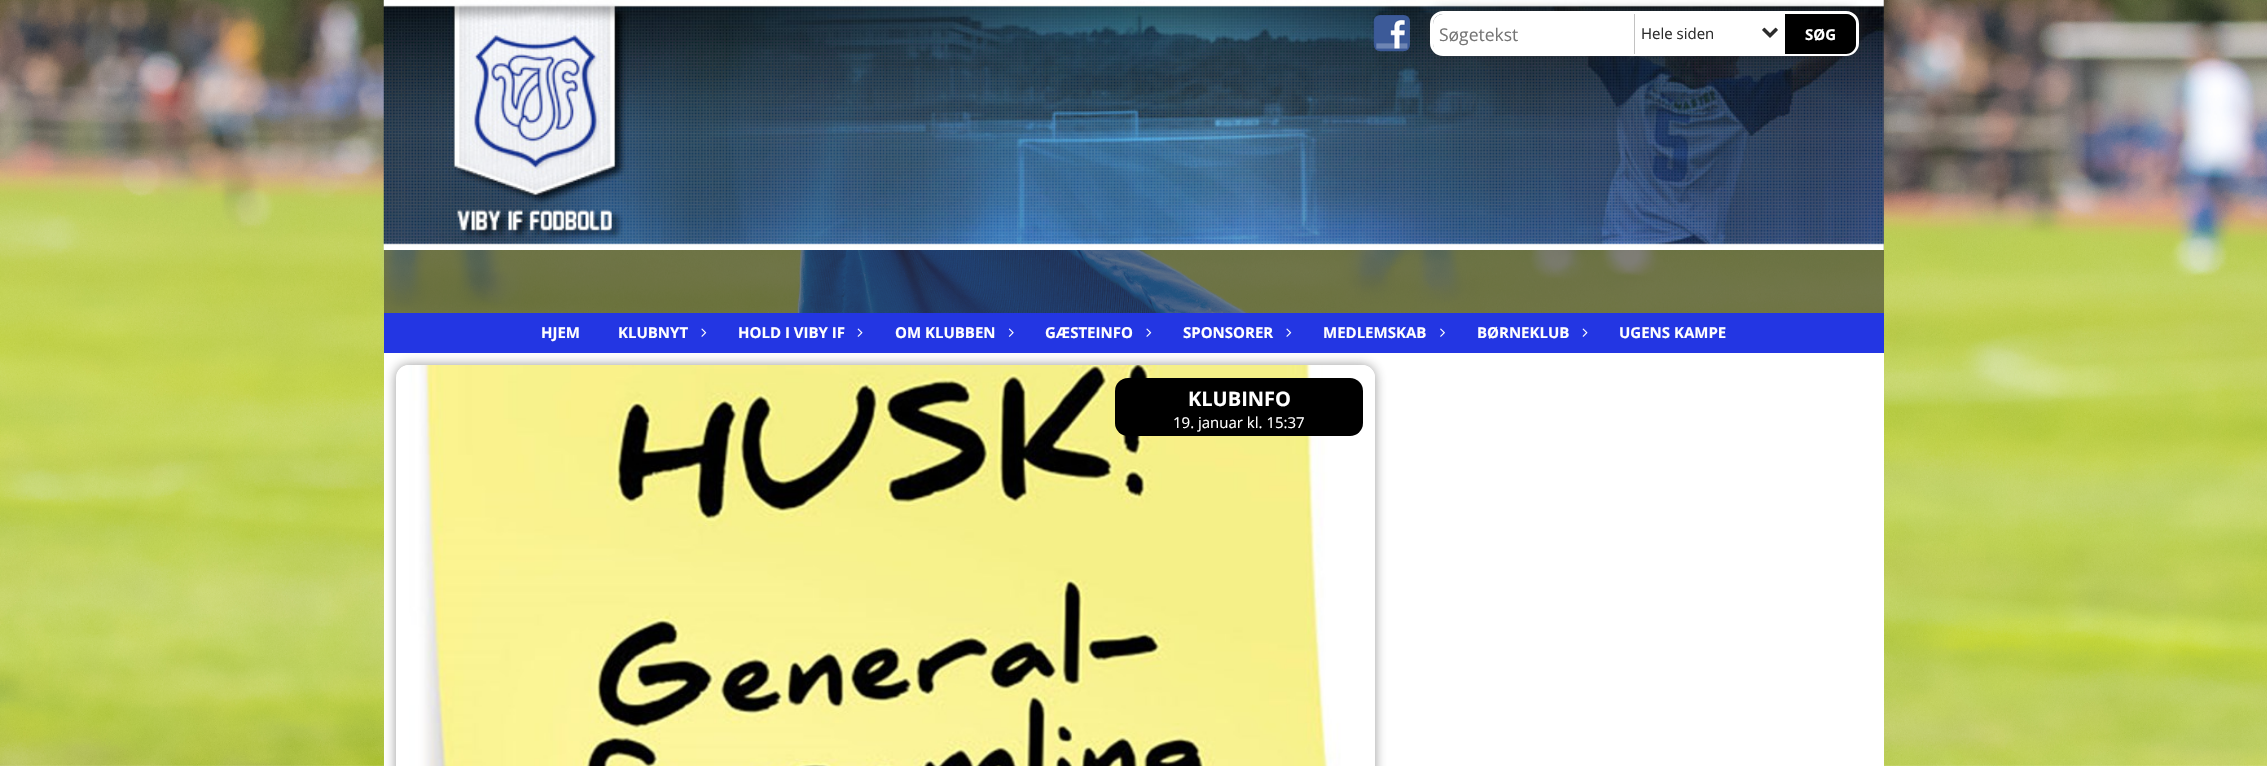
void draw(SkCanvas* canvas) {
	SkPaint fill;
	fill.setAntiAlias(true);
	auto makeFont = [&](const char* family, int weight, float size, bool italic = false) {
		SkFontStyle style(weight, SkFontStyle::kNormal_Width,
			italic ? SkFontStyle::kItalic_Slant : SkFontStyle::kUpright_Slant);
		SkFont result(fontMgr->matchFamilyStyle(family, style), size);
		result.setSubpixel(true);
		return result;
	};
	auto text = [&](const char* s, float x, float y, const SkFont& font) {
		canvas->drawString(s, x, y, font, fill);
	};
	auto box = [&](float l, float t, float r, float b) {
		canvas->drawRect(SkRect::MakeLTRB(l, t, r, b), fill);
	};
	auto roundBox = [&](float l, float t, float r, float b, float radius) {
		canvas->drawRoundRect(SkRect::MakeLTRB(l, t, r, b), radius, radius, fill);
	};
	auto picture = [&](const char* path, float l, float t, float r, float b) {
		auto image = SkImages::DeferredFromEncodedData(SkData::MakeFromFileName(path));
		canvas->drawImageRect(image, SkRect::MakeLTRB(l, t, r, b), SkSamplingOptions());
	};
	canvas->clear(0xFFFFFFFF);
	picture("image0.png", 0, 0, 2267, 766);
	fill.setColor(0x99363636);
	box(384, 0, 1884, 313);
	picture("image1.png", 383, 0, 1884, 250);
	picture("image2.png", 1373, 15, 1410, 52);
	fill.setColor(0x80303030);
	fill.setMaskFilter(SkMaskFilter::MakeBlur(kNormal_SkBlurStyle, 6));
	canvas->drawRoundRect(SkRect::MakeLTRB(1430, 11, 1859, 56), 13, 13, fill);
	fill.setMaskFilter(nullptr);
	fill.setStyle(SkPaint::kStroke_Style);
	fill.setStrokeWidth(3);
	fill.setColor(0xFFFFFFFF);
	canvas->drawRoundRect(SkRect::MakeLTRB(1431.5f, 12.5f, 1857.5f, 54.5f), 11.5f, 11.5f, fill);
	fill.setStyle(SkPaint::kFill_Style);
	canvas->drawPath(SkPathBuilder().moveTo(1443, 14).lineTo(1639, 14).lineTo(1639, 54).lineTo(1443, 54).cubicTo(1437.5f, 54, 1433, 49.5f, 1433, 44).lineTo(1433, 24).cubicTo(1433, 18.5f, 1437.5f, 14, 1443, 14).close().detach(), fill);
	box(1639, 14, 1785, 53);
	fill.setColor(0xFFC2C2C2);
	box(1634, 14, 1635, 54);
	picture("image3.png", 1762, 27, 1778, 38);
	fill.setColor(0xFF000000);
	canvas->drawPath(SkPathBuilder().moveTo(1785, 14).lineTo(1846, 14).cubicTo(1851.5f, 14, 1856, 18.5f, 1856, 24).lineTo(1856, 44).cubicTo(1856, 49.5f, 1851.5f, 54, 1846, 54).lineTo(1785, 54).close().detach(), fill);
	fill.setColor(0xFF2336E3);
	box(384, 313, 1884, 353);
	picture("image4.png", 701, 328, 707, 337);
	picture("image5.png", 857, 328, 863, 337);
	picture("image6.png", 1008, 328, 1014, 337);
	picture("image4.png", 1146, 328, 1152, 337);
	picture("image4.png", 1286, 328, 1292, 337);
	picture("image7.png", 1440, 328, 1445, 337);
	picture("image5.png", 1582, 328, 1588, 337);
	fill.setColor(0xFFFFFFFF);
	box(384, 353, 1884, 766);
	fill.setColor(0x80303030);
	fill.setMaskFilter(SkMaskFilter::MakeBlur(kNormal_SkBlurStyle, 6));
	canvas->drawRoundRect(SkRect::MakeLTRB(396, 365, 1375, 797), 13, 13, fill);
	fill.setMaskFilter(nullptr);
	fill.setColor(0xFFFFFFFF);
	roundBox(396, 365, 1375, 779, 13);
	picture("image8.png", 396, 365, 1375, 766);
	fill.setColor(0xFF000000);
	roundBox(1115, 378, 1363, 436, 13);
	auto font1 = makeFont("Open Sans", 400, 17.5f);
	fill.setColor(0xFF757575);
	text("Søgetekst", 1439, 41, font1);
	auto font2 = makeFont("Open Sans", 400, 15);
	fill.setColor(0xFF2C2C2C);
	text("Hele siden", 1641, 39, font2);
	auto font3 = makeFont("Open Sans", 700, 15);
	fill.setColor(0xFFFFFFFF);
	text("SØG", 1805, 40, font3);
	text("HJEM", 541, 338, font3);
	text("KLUBNYT", 618, 338, font3);
	text("HOLD I VIBY IF", 738, 338, font3);
	text("OM KLUBBEN", 895, 338, font3);
	text("GÆSTEINFO", 1045, 338, font3);
	text("SPONSORER", 1183, 338, font3);
	text("MEDLEMSKAB", 1323, 338, font3);
	text("BØRNEKLUB", 1477, 338, font3);
	text("UGENS KAMPE", 1619, 338, font3);
	auto font4 = makeFont("Open Sans", 700, 20);
	text("KLUBINFO", 1188, 406, font4);
	text("19. januar kl. 15:37", 1173, 428, font2);
}
